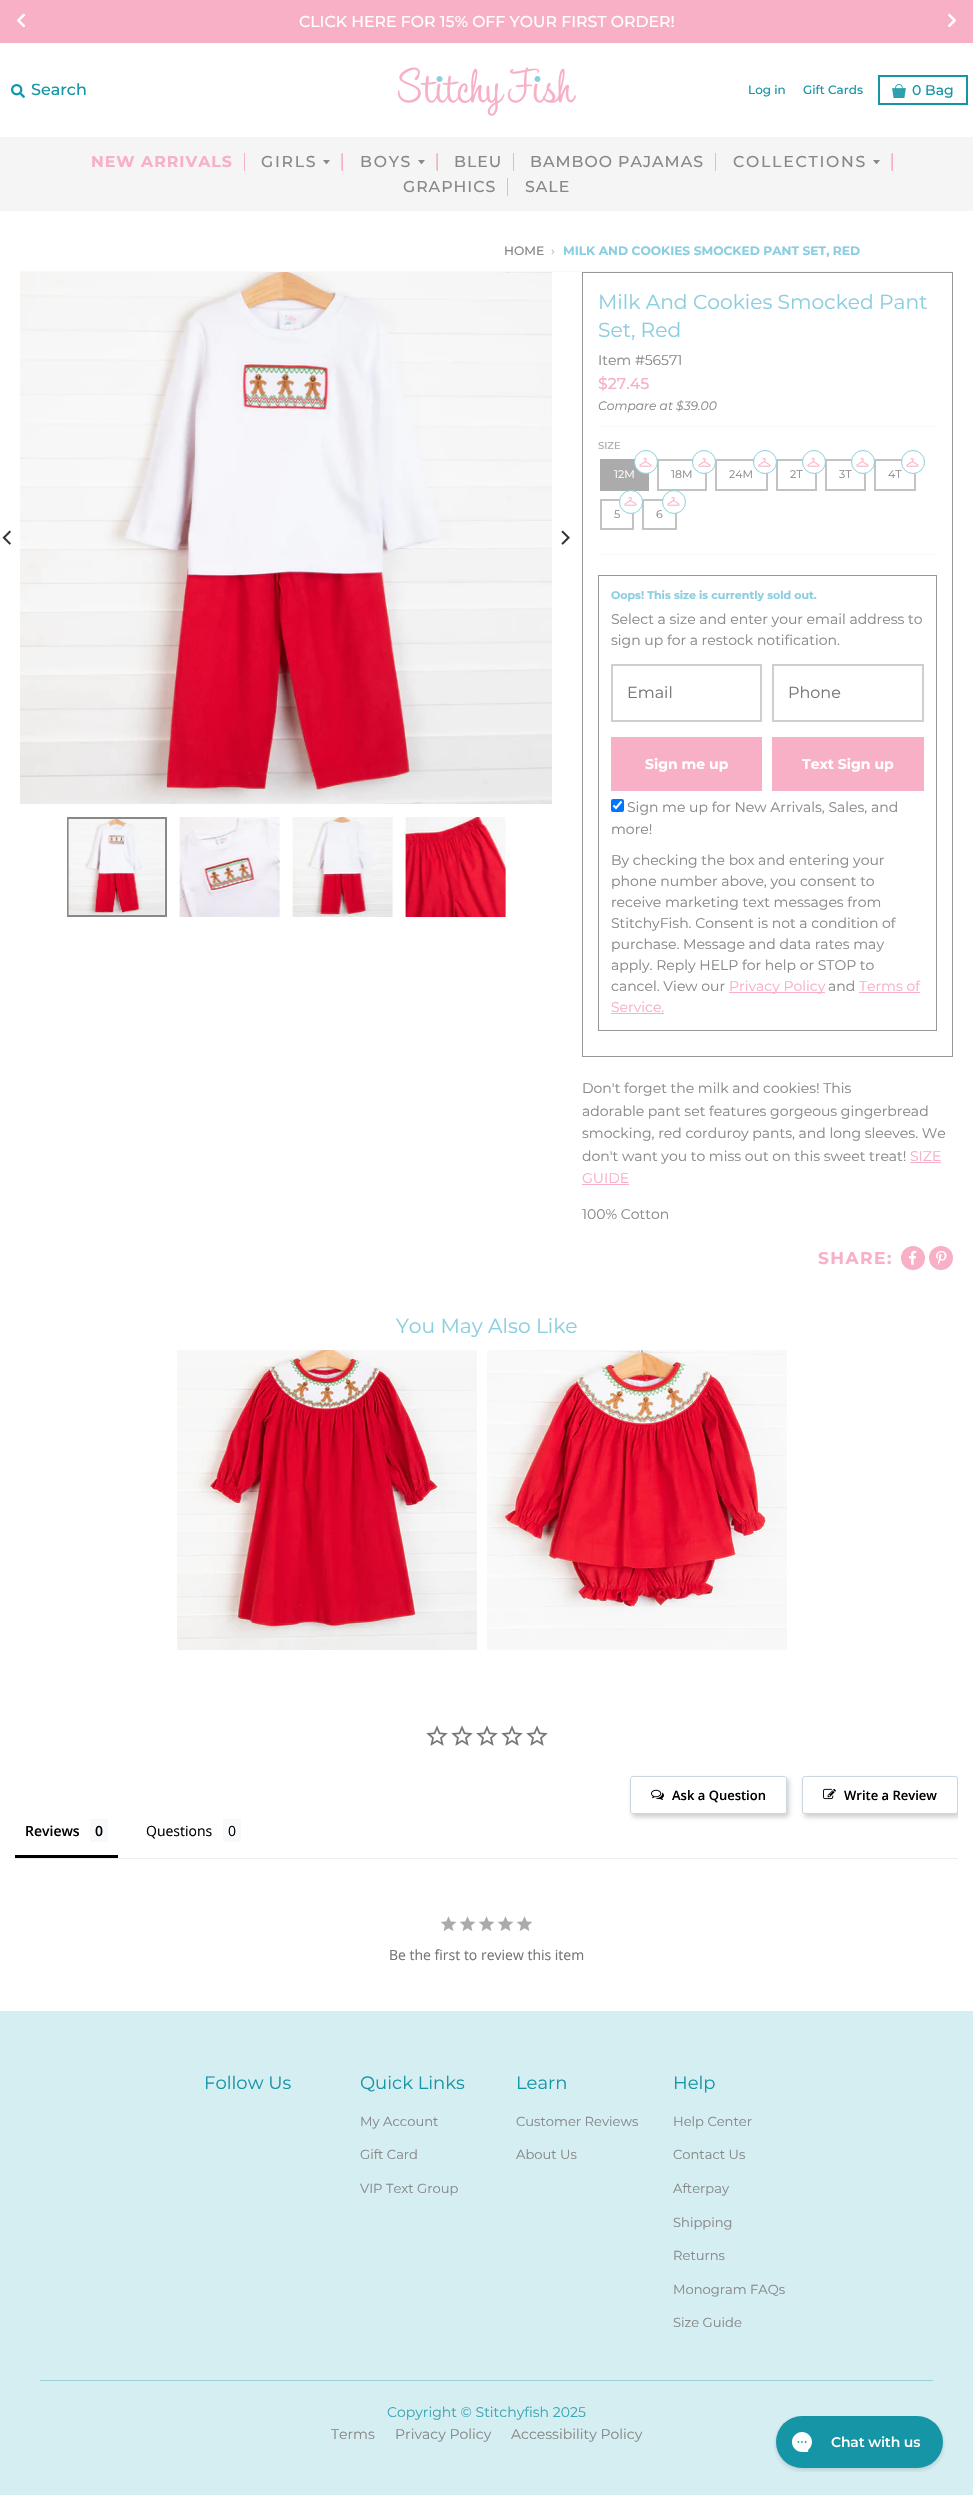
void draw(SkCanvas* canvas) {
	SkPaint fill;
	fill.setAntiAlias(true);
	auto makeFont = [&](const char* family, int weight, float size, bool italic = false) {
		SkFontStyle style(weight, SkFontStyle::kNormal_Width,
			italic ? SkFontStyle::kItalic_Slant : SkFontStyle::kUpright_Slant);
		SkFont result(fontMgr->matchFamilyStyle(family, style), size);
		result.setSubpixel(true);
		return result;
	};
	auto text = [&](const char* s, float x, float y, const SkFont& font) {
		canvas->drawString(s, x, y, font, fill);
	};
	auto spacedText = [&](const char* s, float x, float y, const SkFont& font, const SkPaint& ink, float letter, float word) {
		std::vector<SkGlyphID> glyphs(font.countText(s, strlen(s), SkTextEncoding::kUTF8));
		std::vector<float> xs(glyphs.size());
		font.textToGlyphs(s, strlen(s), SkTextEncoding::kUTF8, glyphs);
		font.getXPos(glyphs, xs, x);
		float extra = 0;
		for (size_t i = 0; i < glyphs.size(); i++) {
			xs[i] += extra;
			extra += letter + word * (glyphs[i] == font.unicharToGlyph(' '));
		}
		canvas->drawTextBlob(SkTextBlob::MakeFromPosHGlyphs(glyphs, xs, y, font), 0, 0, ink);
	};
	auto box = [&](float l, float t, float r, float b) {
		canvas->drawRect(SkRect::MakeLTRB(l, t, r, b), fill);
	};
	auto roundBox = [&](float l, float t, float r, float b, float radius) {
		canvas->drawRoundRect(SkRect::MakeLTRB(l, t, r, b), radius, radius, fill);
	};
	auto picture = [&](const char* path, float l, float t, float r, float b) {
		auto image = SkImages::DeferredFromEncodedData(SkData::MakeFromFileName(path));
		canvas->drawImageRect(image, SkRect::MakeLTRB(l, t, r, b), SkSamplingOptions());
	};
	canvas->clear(0xFFFFFFFF);
	fill.setColor(0xFFF7B0C5);
	box(0, 0, 973, 43);
	picture("image0.png", 16, 13, 25, 28);
	picture("image1.png", 948, 13, 957, 28);
	picture("image2.png", 11, 84, 25, 98);
	picture("image3.png", 398, 67, 576, 116);
	fill.setStyle(SkPaint::kStroke_Style);
	fill.setStrokeWidth(2);
	fill.setColor(0xFF1595A6);
	canvas->drawRect(SkRect::MakeLTRB(879, 76, 967, 104), fill);
	picture("image4.png", 892, 84, 906, 98);
	fill.setStyle(SkPaint::kFill_Style);
	fill.setColor(0xFFF5F5F5);
	box(0, 137, 973, 211);
	fill.setColor(0xFFF7B0C5);
	box(244, 153, 245, 171);
	box(342, 153, 343, 171);
	fill.setColor(0xFFF0CAC9);
	canvas->drawPath(SkPathBuilder().moveTo(342, 153).lineTo(342, 171).lineTo(341, 170).lineTo(341, 154).close().detach(), fill);
	fill.setColor(0xFF888888);
	canvas->drawPath(SkPathBuilder().moveTo(323, 160).cubicTo(327.5f, 165.5f, 325.5f, 165.5f, 330, 160).close().detach(), fill);
	fill.setColor(0xFFF7B0C5);
	box(437, 153, 438, 171);
	fill.setColor(0xFFF0CAC9);
	canvas->drawPath(SkPathBuilder().moveTo(437, 153).lineTo(437, 171).lineTo(436, 170).lineTo(436, 154).close().detach(), fill);
	fill.setColor(0xFF888888);
	canvas->drawPath(SkPathBuilder().moveTo(418, 160).cubicTo(422.5f, 165.5f, 420.5f, 165.5f, 425, 160).close().detach(), fill);
	fill.setColor(0xFFF7B0C5);
	box(513, 153, 514, 171);
	box(715, 153, 716, 171);
	box(892, 153, 893, 171);
	fill.setColor(0xFFF0CAC9);
	canvas->drawPath(SkPathBuilder().moveTo(892, 153).lineTo(892, 171).lineTo(891, 170).lineTo(891, 154).close().detach(), fill);
	fill.setColor(0xFF888888);
	canvas->drawPath(SkPathBuilder().moveTo(873, 160).cubicTo(877.5f, 165.5f, 875.5f, 165.5f, 880, 160).close().detach(), fill);
	fill.setColor(0xFFF7B0C5);
	box(507, 178, 508, 196);
	fill.setColor(0xFFF3FAFC);
	box(20, 271, 953, 272);
	picture("image5.png", 2, 530, 11, 545);
	picture("image6.png", 20, 272, 552, 804);
	picture("image7.png", 561, 530, 570, 545);
	fill.setStyle(SkPaint::kStroke_Style);
	fill.setColor(0xFF888888);
	canvas->drawRect(SkRect::MakeLTRB(68, 818, 166, 916), fill);
	picture("image8.png", 68, 819, 165, 915);
	picture("image9.png", 179, 817, 280, 917);
	picture("image10.png", 292, 817, 393, 917);
	picture("image11.png", 405, 817, 506, 917);
	fill.setStrokeWidth(1);
	fill.setColor(0xFF979797);
	canvas->drawRect(SkRect::MakeLTRB(582.5f, 272.5f, 952.5f, 1056.5f), fill);
	fill.setStyle(SkPaint::kFill_Style);
	fill.setColor(0xFFF3FAFC);
	box(598, 426, 937, 427);
	box(598, 554, 937, 555);
	fill.setColor(0xFFABABAB);
	box(600, 459, 649, 491);
	fill.setStyle(SkPaint::kStroke_Style);
	fill.setStrokeWidth(2);
	fill.setColor(0xFFC3C3C3);
	canvas->drawRect(SkRect::MakeLTRB(658, 460, 706, 490), fill);
	fill.setStyle(SkPaint::kFill_Style);
	fill.setColor(0xFFFFFFFF);
	canvas->drawCircle(646, 462, 11.5f, fill);
	fill.setStyle(SkPaint::kStroke_Style);
	fill.setStrokeWidth(1);
	fill.setColor(0xFF8BCEE1);
	canvas->drawCircle(646, 462, 11.5f, fill);
	picture("image12.png", 639, 457, 652, 467);
	fill.setStrokeWidth(2);
	fill.setColor(0xFFC3C3C3);
	canvas->drawRect(SkRect::MakeLTRB(716, 460, 767, 490), fill);
	canvas->drawRect(SkRect::MakeLTRB(777, 460, 816, 490), fill);
	fill.setStyle(SkPaint::kFill_Style);
	fill.setColor(0xFFFFFFFF);
	canvas->drawCircle(765, 462, 11.5f, fill);
	fill.setStyle(SkPaint::kStroke_Style);
	fill.setStrokeWidth(1);
	fill.setColor(0xFF8BCEE1);
	canvas->drawCircle(765, 462, 11.5f, fill);
	picture("image12.png", 758, 457, 771, 467);
	fill.setStrokeWidth(2);
	fill.setColor(0xFFC3C3C3);
	canvas->drawRect(SkRect::MakeLTRB(826, 460, 865, 490), fill);
	canvas->drawRect(SkRect::MakeLTRB(875, 460, 915, 490), fill);
	canvas->drawRect(SkRect::MakeLTRB(601, 500, 633, 529), fill);
	canvas->drawRect(SkRect::MakeLTRB(643, 500, 676, 529), fill);
	fill.setStrokeWidth(1);
	fill.setColor(0xFF979797);
	canvas->drawRect(SkRect::MakeLTRB(598.5f, 575.5f, 936.5f, 1030.5f), fill);
	fill.setStrokeWidth(2);
	fill.setColor(0xFFCFCFCF);
	canvas->drawRect(SkRect::MakeLTRB(612, 665, 761, 721), fill);
	fill.setStyle(SkPaint::kFill_Style);
	fill.setColor(0xFFF7B0C5);
	box(611, 737, 762, 791);
	fill.setStyle(SkPaint::kStroke_Style);
	fill.setColor(0xFFCFCFCF);
	canvas->drawRect(SkRect::MakeLTRB(773, 665, 923, 721), fill);
	fill.setStyle(SkPaint::kFill_Style);
	fill.setColor(0xFFF7B0C5);
	box(772, 737, 924, 791);
	fill.setColor(0xFF0075FF);
	roundBox(611, 799, 624, 812, 2);
	fill.setStyle(SkPaint::kStroke_Style);
	fill.setStrokeWidth(2.1f);
	fill.setColor(0xFFFFFFFF);
	canvas->drawPath(SkPathBuilder().moveTo(613.5f, 805.5f).lineTo(616, 808).lineTo(621.5f, 801.5f).detach(), fill);
	fill.setStyle(SkPaint::kFill_Style);
	fill.setColor(0xFFF7B0C5);
	box(729, 992, 825, 993);
	box(859, 992, 920, 993);
	box(611, 1013, 664, 1014);
	box(910, 1162, 941, 1163);
	box(582, 1184, 629, 1185);
	canvas->drawCircle(913, 1258, 12, fill);
	picture("image13.png", 909, 1250, 917, 1265);
	canvas->drawCircle(941, 1258, 12, fill);
	picture("image14.png", 936, 1250, 947, 1265);
	picture("image15.png", 177, 1350, 477, 1650);
	picture("image16.png", 487, 1350, 787, 1650);
	picture("image17.png", 426, 1725, 448, 1746);
	picture("image17.png", 451, 1725, 473, 1746);
	picture("image17.png", 476, 1725, 498, 1746);
	picture("image17.png", 501, 1725, 523, 1746);
	picture("image17.png", 526, 1725, 548, 1746);
	canvas->save();
	canvas->clipPath(SkPathBuilder(SkPathFillType::kEvenOdd).moveTo(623, 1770).lineTo(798, 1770).lineTo(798, 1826).lineTo(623, 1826).close().moveTo(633, 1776).lineTo(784, 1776).cubicTo(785.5f, 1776, 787, 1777.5f, 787, 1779).lineTo(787, 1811).cubicTo(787, 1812.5f, 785.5f, 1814, 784, 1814).lineTo(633, 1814).cubicTo(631.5f, 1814, 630, 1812.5f, 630, 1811).lineTo(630, 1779).cubicTo(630, 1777.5f, 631.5f, 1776, 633, 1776).close().detach(), true);
	fill.setColor(0x6B888888);
	fill.setMaskFilter(SkMaskFilter::MakeBlur(kNormal_SkBlurStyle, 2.5f));
	canvas->drawRoundRect(SkRect::MakeLTRB(632, 1779, 789, 1817), 3, 3, fill);
	fill.setMaskFilter(nullptr);
	canvas->restore();
	fill.setStyle(SkPaint::kStroke_Style);
	fill.setStrokeWidth(1);
	fill.setColor(0xFFCCD6E0);
	canvas->drawRoundRect(SkRect::MakeLTRB(630.5f, 1776.5f, 786.5f, 1813.5f), 2.5f, 2.5f, fill);
	picture("image18.png", 651, 1789, 664, 1800);
	canvas->save();
	canvas->clipRect(SkRect::MakeLTRB(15, 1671, 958, 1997));
	canvas->clipPath(SkPathBuilder(SkPathFillType::kEvenOdd).moveTo(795, 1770).lineTo(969, 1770).lineTo(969, 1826).lineTo(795, 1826).close().moveTo(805, 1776).lineTo(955, 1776).cubicTo(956.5f, 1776, 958, 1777.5f, 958, 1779).lineTo(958, 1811).cubicTo(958, 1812.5f, 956.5f, 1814, 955, 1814).lineTo(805, 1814).cubicTo(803.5f, 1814, 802, 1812.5f, 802, 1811).lineTo(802, 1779).cubicTo(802, 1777.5f, 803.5f, 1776, 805, 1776).close().detach(), true);
	fill.setStyle(SkPaint::kFill_Style);
	fill.setColor(0x6B888888);
	fill.setMaskFilter(SkMaskFilter::MakeBlur(kNormal_SkBlurStyle, 2.5f));
	canvas->drawRoundRect(SkRect::MakeLTRB(804, 1779, 960, 1817), 3, 3, fill);
	fill.setMaskFilter(nullptr);
	canvas->restore();
	fill.setStyle(SkPaint::kStroke_Style);
	fill.setColor(0xFFCCD6E0);
	canvas->drawRoundRect(SkRect::MakeLTRB(802.5f, 1776.5f, 957.5f, 1813.5f), 2.5f, 2.5f, fill);
	picture("image19.png", 823, 1788, 836, 1800);
	fill.setStyle(SkPaint::kFill_Style);
	fill.setColor(0xFFEEEEEE);
	box(15, 1858, 958, 1859);
	fill.setColor(0xFF000000);
	box(15, 1855, 118, 1858);
	fill.setColor(0xFFF8F9FA);
	box(90, 1819, 108, 1842);
	box(223, 1819, 241, 1842);
	picture("image20.png", 441, 1916, 532, 1931);
	fill.setColor(0xFFD5EEF2);
	box(0, 2011, 973, 2495);
	fill.setColor(0xFF9BD3DB);
	box(40, 2380, 933, 2381);
	picture("image21.png", 774, 2416, 945, 2472);
	auto font1 = makeFont("Montserrat", 100, 15.75f);
	fill.setColor(0xFFFFFFFF);
	text("CLICK HERE FOR 15% OFF YOUR FIRST ORDER!", 299, 27, font1);
	auto font2 = makeFont("Montserrat", 100, 16);
	fill.setColor(0xFF1595A6);
	text("Search", 31, 95, font2);
	auto font3 = makeFont("Montserrat", 100, 12);
	text("Log in", 748, 94, font3);
	text("Gift Cards", 803, 94, font3);
	auto font4 = makeFont("Montserrat", 100, 14);
	text("0 Bag", 912, 95, font4);
	auto font5 = makeFont("Montserrat", 700, 15.75f);
	fill.setColor(0xFFF7B0C5);
	spacedText("NEW ARRIVALS", 91, 167, font5, fill, 1, 0);
	fill.setColor(0xFF888888);
	spacedText("GIRLS", 261, 167, font1, fill, 1.75f, 0);
	spacedText("BOYS", 360, 167, font1, fill, 1.75f, 0);
	spacedText("BLEU", 454, 167, font1, fill, 1, 0);
	spacedText("BAMBOO PAJAMAS", 530, 167, font1, fill, 1, 0);
	spacedText("COLLECTIONS", 733, 167, font1, fill, 1.75f, 0);
	spacedText("GRAPHICS", 403, 192, font1, fill, 1, 0);
	spacedText("SALE", 525, 192, font1, fill, 1, 0);
	auto font6 = makeFont("Montserrat", 100, 12.25f);
	text("HOME", 504, 255, font6);
	fill.setColor(0xFFC3C3C3);
	text("›", 551, 255, font6);
	auto font7 = makeFont("Montserrat", 700, 12.25f);
	fill.setColor(0xFF8CCEE1);
	text("MILK AND COOKIES SMOCKED PANT SET, RED", 563, 255, font7);
	auto font8 = makeFont("Montserrat", 400, 20.25f);
	text("Milk And Cookies Smocked Pant", 598, 309, font8);
	text("Set, Red", 598, 337, font8);
	auto font9 = makeFont("Montserrat", 400, 14);
	fill.setColor(0xFF888888);
	text("Item #56571", 598, 365, font9);
	fill.setColor(0xFFF7B0C5);
	text("$27.45", 598, 389, font1);
	auto font10 = makeFont("Montserrat", 400, 12.25f, true);
	fill.setColor(0xFF888888);
	text("Compare at $39.00", 598, 410, font10);
	auto font11 = makeFont("Montserrat", 100, 10);
	fill.setColor(0xFFABABAB);
	text("SIZE", 598, 449, font11);
	auto font12 = makeFont("Montserrat", 400, 11);
	fill.setColor(0xFFFFFFFF);
	text("12M", 614, 478, font12);
	fill.setColor(0xFF888888);
	text("18M", 671, 478, font12);
	fill.setColor(0xFFFFFFFF);
	canvas->drawCircle(704, 462, 11.5f, fill);
	fill.setStyle(SkPaint::kStroke_Style);
	fill.setColor(0xFF8BCEE1);
	canvas->drawCircle(704, 462, 11.5f, fill);
	picture("image12.png", 698, 457, 711, 467);
	fill.setStyle(SkPaint::kFill_Style);
	fill.setColor(0xFF888888);
	text("24M", 729, 478, font12);
	text("2T", 790, 478, font12);
	fill.setColor(0xFFFFFFFF);
	canvas->drawCircle(814, 462, 11.5f, fill);
	fill.setStyle(SkPaint::kStroke_Style);
	fill.setColor(0xFF8BCEE1);
	canvas->drawCircle(814, 462, 11.5f, fill);
	picture("image12.png", 807, 457, 820, 467);
	fill.setStyle(SkPaint::kFill_Style);
	fill.setColor(0xFF888888);
	text("3T", 839, 478, font12);
	fill.setColor(0xFFFFFFFF);
	canvas->drawCircle(863, 462, 11.5f, fill);
	fill.setStyle(SkPaint::kStroke_Style);
	fill.setColor(0xFF8BCEE1);
	canvas->drawCircle(863, 462, 11.5f, fill);
	picture("image12.png", 856, 457, 869, 467);
	fill.setStyle(SkPaint::kFill_Style);
	fill.setColor(0xFF888888);
	text("4T", 888, 478, font12);
	fill.setColor(0xFFFFFFFF);
	canvas->drawCircle(913, 462, 11.5f, fill);
	fill.setStyle(SkPaint::kStroke_Style);
	fill.setColor(0xFF8BCEE1);
	canvas->drawCircle(913, 462, 11.5f, fill);
	picture("image12.png", 906, 457, 919, 467);
	fill.setStyle(SkPaint::kFill_Style);
	fill.setColor(0xFF888888);
	text("5", 614, 518, font12);
	fill.setColor(0xFFFFFFFF);
	canvas->drawCircle(631, 502, 11.5f, fill);
	fill.setStyle(SkPaint::kStroke_Style);
	fill.setColor(0xFF8BCEE1);
	canvas->drawCircle(631, 502, 11.5f, fill);
	picture("image12.png", 624, 496, 637, 506);
	fill.setStyle(SkPaint::kFill_Style);
	fill.setColor(0xFF888888);
	text("6", 656, 518, font12);
	fill.setColor(0xFFFFFFFF);
	canvas->drawCircle(674, 502, 11.5f, fill);
	fill.setStyle(SkPaint::kStroke_Style);
	fill.setColor(0xFF8BCEE1);
	canvas->drawCircle(674, 502, 11.5f, fill);
	picture("image12.png", 667, 496, 680, 506);
	auto font13 = makeFont("Montserrat", 700, 11);
	fill.setStyle(SkPaint::kFill_Style);
	fill.setColor(0xFF8CCEE1);
	text("Oops! This size is currently sold out.", 611, 599, font13);
	fill.setColor(0xFF888888);
	text("Select a size and enter your email address to", 611, 624, font9);
	text("sign up for a restock notification.", 611, 645, font9);
	auto font14 = makeFont("Montserrat", 400, 16);
	fill.setColor(0xFF757575);
	text("Email", 627, 698, font14);
	auto font15 = makeFont("Montserrat", 700, 14);
	fill.setColor(0xFFFFFFFF);
	text("Sign me up", 645, 769, font15);
	fill.setColor(0xFF757575);
	text("Phone", 788, 698, font14);
	fill.setColor(0xFFFFFFFF);
	text("Text Sign up", 802, 769, font15);
	fill.setColor(0xFF888888);
	text("Sign me up for New Arrivals, Sales, and", 627, 812, font9);
	text("more!", 611, 834, font9);
	text("By checking the box and entering your", 611, 865, font9);
	text("phone number above, you consent to", 611, 886, font9);
	text("receive marketing text messages from", 611, 907, font9);
	text("StitchyFish. Consent is not a condition of", 611, 928, font9);
	text("purchase. Message and data rates may", 611, 949, font9);
	text("apply. Reply HELP for help or STOP to", 611, 970, font9);
	text("cancel. View our", 611, 991, font9);
	fill.setColor(0xFFF7B0C5);
	text("Privacy Policy", 729, 991, font9);
	fill.setColor(0xFF888888);
	text("and", 828, 991, font9);
	fill.setColor(0xFFF7B0C5);
	text("Terms of", 859, 991, font9);
	text("Service.", 611, 1012, font9);
	fill.setColor(0xFF888888);
	text("Don't forget the milk and cookies! This", 582, 1093, font9);
	text("adorable pant set features gorgeous gingerbread", 582, 1116, font9);
	text("smocking, red corduroy pants, and long sleeves. We", 582, 1138, font9);
	text("don't want you to miss out on this sweet treat!", 582, 1161, font9);
	fill.setColor(0xFFF7B0C5);
	text("SIZE", 910, 1161, font9);
	text("GUIDE", 582, 1183, font9);
	fill.setColor(0xFF888888);
	text("100% Cotton", 582, 1219, font9);
	auto font16 = makeFont("Montserrat", 700, 17);
	fill.setColor(0xFFF7B0C5);
	spacedText("SHARE:", 818, 1264, font16, fill, 1.5f, 0);
	fill.setColor(0xFF8CCEE1);
	text("You May Also Like", 396, 1333, font8);
	auto font17 = makeFont("Open Sans", 600, 13);
	fill.setColor(0xFF000000);
	text("Ask a Question", 672, 1800, font17);
	text("Write a Review", 844, 1800, font17);
	auto font18 = makeFont("Open Sans", 600, 14);
	text("Reviews", 25, 1836, font18);
	text("0", 95, 1836, font18);
	auto font19 = makeFont("Open Sans", 400, 14);
	text("Questions", 146, 1836, font19);
	text("0", 228, 1836, font19);
	fill.setColor(0xFF757575);
	text("Be the first to review this item", 389, 1960, font19);
	auto font20 = makeFont("Montserrat", 400, 18);
	fill.setColor(0xFF1595A6);
	text("Follow Us", 204, 2089, font20);
	text("Quick Links", 360, 2089, font20);
	auto font21 = makeFont("Montserrat", 400, 13.1f);
	fill.setColor(0xFF888888);
	text("My Account", 360, 2126, font21);
	text("Gift Card", 360, 2159, font21);
	text("VIP Text Group", 360, 2193, font21);
	fill.setColor(0xFF1595A6);
	text("Learn", 516, 2089, font20);
	fill.setColor(0xFF888888);
	text("Customer Reviews", 516, 2126, font21);
	text("About Us", 516, 2159, font21);
	fill.setColor(0xFF1595A6);
	text("Help", 673, 2089, font20);
	fill.setColor(0xFF888888);
	text("Help Center", 673, 2126, font21);
	text("Contact Us", 673, 2159, font21);
	text("Afterpay", 673, 2193, font21);
	text("Shipping", 673, 2227, font21);
	text("Returns", 673, 2260, font21);
	text("Monogram FAQs", 673, 2294, font21);
	text("Size Guide", 673, 2327, font21);
	fill.setColor(0xFF3BA6B5);
	text("Copyright © Stitchyfish 2025", 387, 2417, font9);
	fill.setColor(0xFF888888);
	text("Terms", 331, 2439, font9);
	text("Privacy Policy", 395, 2439, font9);
	text("Accessibility Policy", 511, 2439, font9);
}
